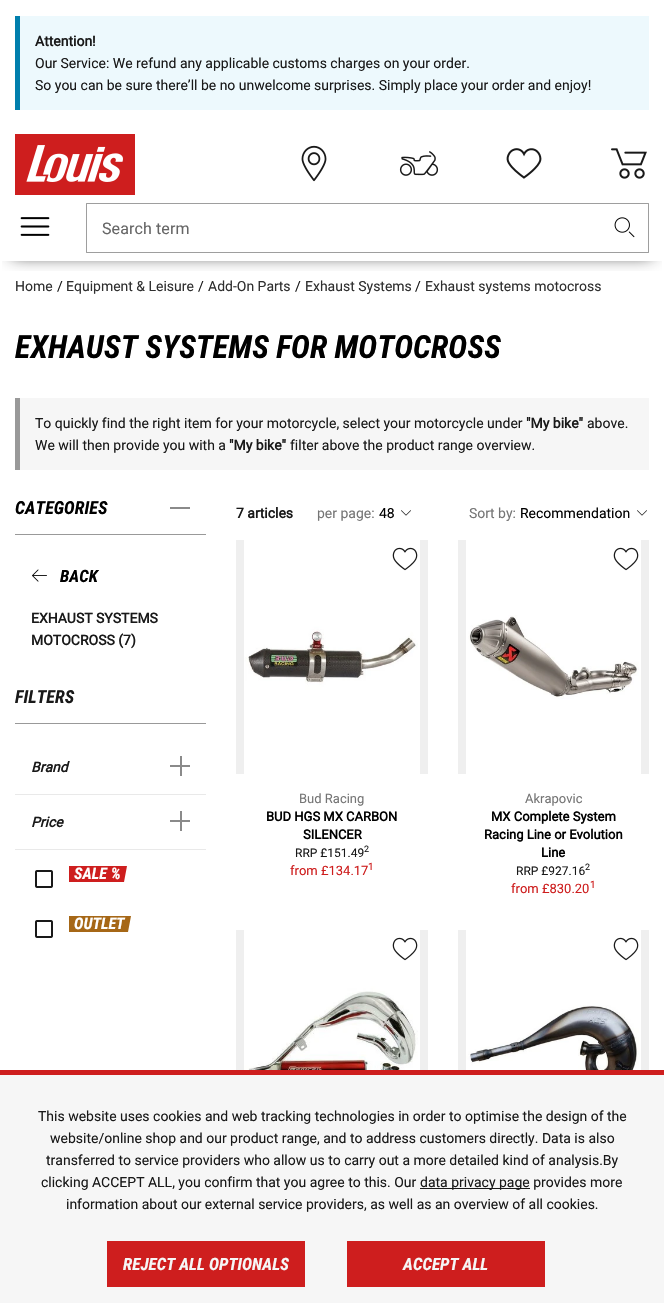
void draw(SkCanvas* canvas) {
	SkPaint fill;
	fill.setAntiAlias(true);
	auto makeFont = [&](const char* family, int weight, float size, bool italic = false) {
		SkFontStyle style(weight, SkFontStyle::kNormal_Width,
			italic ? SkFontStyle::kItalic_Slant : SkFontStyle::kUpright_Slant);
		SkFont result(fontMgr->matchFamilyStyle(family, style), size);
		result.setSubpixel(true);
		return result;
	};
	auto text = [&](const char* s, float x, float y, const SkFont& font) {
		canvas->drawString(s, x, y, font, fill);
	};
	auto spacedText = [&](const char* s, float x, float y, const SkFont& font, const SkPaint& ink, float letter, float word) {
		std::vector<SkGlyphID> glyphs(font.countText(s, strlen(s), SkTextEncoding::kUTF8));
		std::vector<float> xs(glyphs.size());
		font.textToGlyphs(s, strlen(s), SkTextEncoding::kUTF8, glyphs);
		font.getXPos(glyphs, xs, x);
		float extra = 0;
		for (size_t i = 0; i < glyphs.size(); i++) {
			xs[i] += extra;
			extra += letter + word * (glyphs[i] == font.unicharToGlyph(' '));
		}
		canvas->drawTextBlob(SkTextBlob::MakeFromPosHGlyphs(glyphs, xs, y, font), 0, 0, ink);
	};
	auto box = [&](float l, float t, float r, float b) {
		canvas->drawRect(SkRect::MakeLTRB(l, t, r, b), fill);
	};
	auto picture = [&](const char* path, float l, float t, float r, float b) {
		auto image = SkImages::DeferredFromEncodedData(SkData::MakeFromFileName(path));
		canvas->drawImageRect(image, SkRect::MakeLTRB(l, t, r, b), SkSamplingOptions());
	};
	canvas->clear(0xFFFFFFFF);
	canvas->save();
	canvas->clipRect(SkRect::MakeLTRB(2, 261, 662, 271));
	fill.setColor(0xFF191919);
	fill.setMaskFilter(SkMaskFilter::MakeBlur(kNormal_SkBlurStyle, 8));
	canvas->drawRect(SkRect::MakeLTRB(12, 18, 652, 255), fill);
	fill.setMaskFilter(nullptr);
	canvas->restore();
	fill.setColor(0xFFEDF9FD);
	box(20, 16, 649, 110);
	fill.setColor(0xFF007FAD);
	box(15, 16, 20, 110);
	picture("image0.png", 15, 134, 135, 195);
	picture("image1.png", 301, 145, 327, 182);
	picture("image2.png", 399, 151, 439, 176);
	picture("image3.png", 506, 148, 542, 179);
	picture("image4.png", 611, 148, 647, 179);
	picture("image5.png", 20, 217, 50, 236);
	fill.setColor(0xFF9E9E9E);
	canvas->drawPath(SkPathBuilder().moveTo(86, 203).lineTo(98, 203).lineTo(98, 204).lineTo(87, 204).close().moveTo(98, 253).lineTo(86, 253).lineTo(87, 252).lineTo(98, 252).close().detach(), fill);
	fill.setColor(0x61000000);
	canvas->drawPath(SkPathBuilder().moveTo(86, 253).lineTo(86, 203).lineTo(87, 204).lineTo(87, 252).close().detach(), fill);
	fill.setColor(0xFF9E9E9E);
	box(98, 203, 190, 204);
	box(98, 252, 190, 253);
	canvas->drawPath(SkPathBuilder().moveTo(190, 203).lineTo(649, 203).lineTo(648, 204).lineTo(190, 204).close().detach(), fill);
	fill.setColor(0x61000000);
	canvas->drawPath(SkPathBuilder().moveTo(649, 203).lineTo(649, 253).lineTo(648, 252).lineTo(648, 204).close().detach(), fill);
	canvas->drawPath(SkPathBuilder().moveTo(649, 253).lineTo(190, 253).lineTo(190, 252).lineTo(648, 252).close().detach(), fill);
	picture("image6.png", 614, 217, 635, 238);
	fill.setColor(0xFFF6F6F6);
	box(20, 398, 649, 470);
	fill.setColor(0xFF999999);
	box(15, 398, 20, 470);
	box(15, 534, 206, 535);
	fill.setColor(0xFF8A8A8A);
	box(170, 507, 190, 509);
	picture("image7.png", 32, 569, 47, 582);
	fill.setColor(0xFF999999);
	box(15, 723, 206, 724);
	fill.setColor(0xFFE9E9E9);
	box(15, 794, 206, 795);
	fill.setColor(0xFF8A8A8A);
	box(170, 765, 190, 767);
	box(180, 756, 182, 776);
	fill.setColor(0xFFE9E9E9);
	box(15, 849, 206, 850);
	fill.setColor(0xFF8A8A8A);
	box(170, 820, 190, 822);
	box(180, 811, 182, 831);
	picture("image8.png", 35, 870, 53, 888);
	fill.setColor(0xFFCE1E1E);
	canvas->drawPath(SkPathBuilder().moveTo(72, 866).lineTo(127, 866).lineTo(124, 882).lineTo(70, 882).close().detach(), fill);
	box(69, 866, 72, 882);
	picture("image8.png", 35, 920, 53, 938);
	fill.setColor(0xFFA66716);
	canvas->drawPath(SkPathBuilder().moveTo(72, 916).lineTo(131, 916).lineTo(128, 932).lineTo(70, 932).close().detach(), fill);
	box(69, 916, 72, 932);
	picture("image9.png", 401, 510, 411, 516);
	picture("image9.png", 637, 510, 647, 516);
	fill.setColor(0xFFEFEFEF);
	box(236, 540, 428, 774);
	picture("image10.png", 244, 540, 420, 774);
	picture("image11.png", 392, 547, 418, 571);
	box(458, 540, 649, 774);
	picture("image12.png", 466, 540, 641, 774);
	picture("image11.png", 613, 547, 639, 571);
	box(236, 930, 428, 1070);
	picture("image13.png", 244, 930, 420, 1070);
	picture("image11.png", 392, 937, 418, 961);
	box(458, 930, 649, 1070);
	picture("image14.png", 466, 930, 641, 1070);
	picture("image11.png", 613, 937, 639, 961);
	fill.setColor(0xFFF6F6F6);
	box(0, 1075, 664, 1303);
	fill.setColor(0xFFCE1E1E);
	box(0, 1070, 664, 1075);
	fill.setColor(0xFF191919);
	box(420, 1188, 530, 1189);
	fill.setColor(0xFFCE1E1E);
	box(107, 1241, 305, 1287);
	box(347, 1241, 545, 1287);
	auto font1 = makeFont("Roboto", 700, 14);
	fill.setColor(0xFF191919);
	text("Attention!", 35, 46, font1);
	auto font2 = makeFont("Roboto", 400, 14);
	text("Our Service: We refund any applicable customs charges on your order.", 35, 68, font2);
	text("So you can be sure there’ll be no unwelcome surprises. Simply place your order and enjoy!", 35, 90, font2);
	auto font3 = makeFont("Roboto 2", 400, 16);
	fill.setColor(0xFF666666);
	spacedText("Search term", 102, 234, font3, fill, 0.1f, 0);
	fill.setColor(0xFF2F2F2F);
	text("Home", 15, 291, font2);
	fill.setColor(0xFF191919);
	text("/", 57, 291, font2);
	fill.setColor(0xFF2F2F2F);
	text("Equipment & Leisure", 66, 291, font2);
	fill.setColor(0xFF191919);
	text("/", 198, 291, font2);
	fill.setColor(0xFF2F2F2F);
	text("Add-On Parts", 208, 291, font2);
	fill.setColor(0xFF191919);
	text("/", 295, 291, font2);
	fill.setColor(0xFF2F2F2F);
	text("Exhaust Systems", 305, 291, font2);
	fill.setColor(0xFF191919);
	text("/", 415, 291, font2);
	fill.setColor(0xFF2F2F2F);
	text("Exhaust systems motocross", 425, 291, font2);
	auto font4 = makeFont("Roboto Condensed", 700, 32, true);
	fill.setColor(0xFF000000);
	text("EXHAUST SYSTEMS FOR MOTOCROSS", 15, 358, font4);
	fill.setColor(0xFF191919);
	text("To quickly find the right item for your motorcycle, select your motorcycle under", 35, 428, font2);
	text("\"My bike\"", 526, 428, font1);
	text("above.", 587, 428, font2);
	text("We will then provide you with a", 35, 450, font2);
	text("\"My bike\"", 229, 450, font1);
	text("filter above the product range overview.", 290, 450, font2);
	auto font5 = makeFont("Roboto Condensed", 700, 18, true);
	fill.setColor(0xFF000000);
	text("CATEGORIES", 15, 514, font5);
	auto font6 = makeFont("Roboto Condensed", 700, 17, true);
	text("BACK", 60, 582, font6);
	fill.setColor(0xFF191919);
	text("EXHAUST SYSTEMS", 31, 623, font1);
	text("MOTOCROSS (7)", 31, 645, font1);
	text("FILTERS", 15, 703, font5);
	auto font7 = makeFont("Roboto", 700, 14, true);
	text("Brand", 31, 772, font7);
	text("Price", 31, 827, font7);
	auto font8 = makeFont("Roboto Condensed", 700, 16, true);
	fill.setColor(0xFFFFFFFF);
	text("SALE %", 74, 879, font8);
	text("OUTLET", 74, 929, font8);
	fill.setColor(0xFF191919);
	text("7 articles", 236, 518, font1);
	fill.setColor(0xFF757575);
	text("per page:", 317, 518, font2);
	fill.setColor(0xFF000000);
	text("48", 379, 518, font2);
	fill.setColor(0xFF757575);
	text("Sort by:", 469, 518, font2);
	fill.setColor(0xFF000000);
	text("Recommendation", 520, 518, font2);
	auto font9 = makeFont("Roboto", 400, 13);
	fill.setColor(0xFF757575);
	text("Bud Racing", 299, 803, font9);
	auto font10 = makeFont("Roboto", 700, 13);
	fill.setColor(0xFF000000);
	text("BUD HGS MX CARBON", 266, 821, font10);
	text("SILENCER", 303, 839, font10);
	auto font11 = makeFont("Roboto", 400, 12);
	fill.setColor(0xFF191919);
	text("RRP £151.49", 295, 857, font11);
	auto font12 = makeFont("Roboto", 400, 9);
	text("2", 364, 852, font12);
	fill.setColor(0xFFCE1E1E);
	text("from £134.17", 290, 875, font9);
	auto font13 = makeFont("Roboto", 400, 10);
	text("1", 368, 870, font13);
	fill.setColor(0xFF757575);
	text("Akrapovic", 525, 803, font9);
	fill.setColor(0xFF000000);
	text("MX Complete System", 491, 821, font10);
	text("Racing Line or Evolution", 484, 839, font10);
	text("Line", 541, 857, font10);
	fill.setColor(0xFF191919);
	text("RRP £927.16", 516, 875, font11);
	text("2", 585, 870, font12);
	fill.setColor(0xFFCE1E1E);
	text("from £830.20", 511, 893, font9);
	text("1", 590, 888, font13);
	fill.setColor(0xFF191919);
	text("This website uses cookies and web tracking technologies in order to optimise the design of the", 38, 1121, font2);
	text("website/online shop and our product range, and to address customers directly. Data is also", 50, 1143, font2);
	text("transferred to service providers who allow us to carry out a more detailed kind of analysis.By", 46, 1165, font2);
	text("clicking ACCEPT ALL, you confirm that you agree to this. Our", 41, 1187, font2);
	text("data privacy page provides more", 420, 1187, font2);
	text("information about our external service providers, as well as an overview of all cookies.", 66, 1209, font2);
	fill.setColor(0xFFF6F6F6);
	text("REJECT ALL OPTIONALS", 123, 1270, font6);
	text("ACCEPT ALL", 403, 1270, font6);
}
